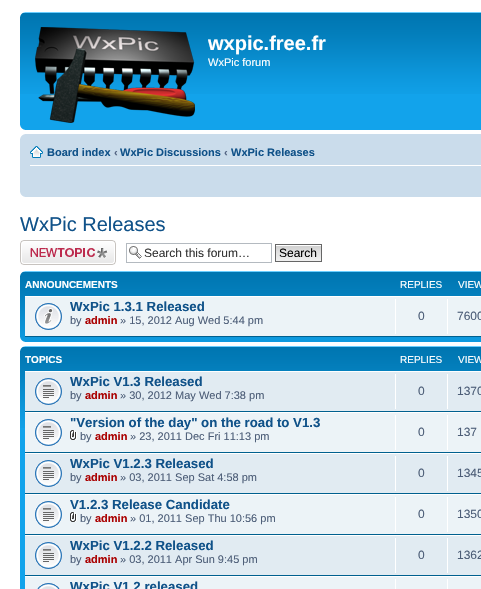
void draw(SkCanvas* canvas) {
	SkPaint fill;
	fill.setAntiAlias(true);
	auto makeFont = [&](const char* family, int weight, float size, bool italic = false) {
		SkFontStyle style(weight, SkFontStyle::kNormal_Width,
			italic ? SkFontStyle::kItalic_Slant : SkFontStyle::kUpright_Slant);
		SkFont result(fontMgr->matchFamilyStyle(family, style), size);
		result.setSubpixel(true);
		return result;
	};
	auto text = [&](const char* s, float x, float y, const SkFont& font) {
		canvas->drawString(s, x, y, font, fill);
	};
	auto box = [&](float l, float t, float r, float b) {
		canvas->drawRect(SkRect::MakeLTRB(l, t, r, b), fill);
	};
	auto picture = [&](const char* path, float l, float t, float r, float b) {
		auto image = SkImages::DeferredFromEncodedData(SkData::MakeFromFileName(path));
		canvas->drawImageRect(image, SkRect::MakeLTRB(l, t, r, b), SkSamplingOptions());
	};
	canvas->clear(0xFFFFFFFF);
	fill.setColor(0xFF12A3EB);
	box(20, 94, 481, 130);
	picture("image0.png", 20, 12, 481, 94);
	picture("image1.png", 20, 12, 25, 17);
	picture("image2.png", 35, 27, 195, 123);
	picture("image3.png", 20, 125, 25, 130);
	fill.setColor(0xFFCADCEB);
	box(20, 134, 481, 197);
	picture("image4.png", 20, 134, 25, 139);
	fill.setColor(0xFFFFFFFF);
	box(30, 165, 481, 166);
	picture("image5.png", 30, 146, 43, 158);
	picture("image6.png", 20, 192, 25, 197);
	picture("image7.png", 20, 240, 116, 265);
	picture("image8.png", 129, 246, 142, 259);
	fill.setStyle(SkPaint::kStroke_Style);
	fill.setStrokeWidth(1);
	fill.setColor(0xFFB4BAC0);
	canvas->drawRect(SkRect::MakeLTRB(126.5f, 243.5f, 271.5f, 262.5f), fill);
	picture("image9.png", 276, 245, 321, 261);
	fill.setColor(0xFF666666);
	canvas->drawRect(SkRect::MakeLTRB(275.5f, 244.5f, 321.5f, 261.5f), fill);
	picture("image10.png", 20, 271, 481, 342);
	picture("image1.png", 20, 271, 25, 276);
	fill.setStyle(SkPaint::kFill_Style);
	fill.setColor(0xFFECF3F7);
	box(25, 297, 481, 336);
	fill.setColor(0xFFFFFFFF);
	box(25, 296, 481, 297);
	fill.setColor(0xFF00608F);
	box(25, 336, 481, 337);
	picture("image11.png", 35, 303, 62, 330);
	fill.setColor(0xFFFFFFFF);
	box(395, 299, 396, 334);
	box(447, 299, 448, 334);
	picture("image12.png", 20, 337, 25, 342);
	fill.setColor(0xFF12A3EB);
	box(20, 428, 25, 589);
	picture("image0.png", 20, 346, 481, 428);
	picture("image1.png", 20, 346, 25, 351);
	fill.setColor(0xFFE1EBF2);
	box(25, 372, 481, 411);
	fill.setColor(0xFFFFFFFF);
	box(25, 371, 481, 372);
	fill.setColor(0xFF00608F);
	box(25, 411, 481, 412);
	picture("image13.png", 35, 378, 62, 405);
	fill.setColor(0xFFFFFFFF);
	box(395, 374, 396, 409);
	box(447, 374, 448, 409);
	fill.setColor(0xFFECF3F7);
	box(25, 413, 481, 452);
	fill.setColor(0xFFFFFFFF);
	box(25, 412, 481, 413);
	fill.setColor(0xFF00608F);
	box(25, 452, 481, 453);
	picture("image14.png", 35, 419, 62, 446);
	picture("image15.png", 70, 430, 77, 440);
	fill.setColor(0xFFFFFFFF);
	box(395, 415, 396, 450);
	box(447, 415, 448, 450);
	fill.setColor(0xFFE1EBF2);
	box(25, 454, 481, 493);
	fill.setColor(0xFF00608F);
	box(25, 493, 481, 494);
	picture("image13.png", 35, 460, 62, 487);
	fill.setColor(0xFFFFFFFF);
	box(395, 456, 396, 491);
	box(447, 456, 448, 491);
	fill.setColor(0xFFECF3F7);
	box(25, 495, 481, 534);
	fill.setColor(0xFF00608F);
	box(25, 534, 481, 535);
	picture("image14.png", 35, 501, 62, 528);
	picture("image15.png", 70, 512, 77, 522);
	fill.setColor(0xFFFFFFFF);
	box(395, 497, 396, 532);
	box(447, 497, 448, 532);
	fill.setColor(0xFFE1EBF2);
	box(25, 536, 481, 575);
	fill.setColor(0xFF00608F);
	box(25, 575, 481, 576);
	picture("image13.png", 35, 542, 62, 569);
	fill.setColor(0xFFFFFFFF);
	box(395, 538, 396, 573);
	box(447, 538, 448, 573);
	fill.setColor(0xFFECF3F7);
	box(25, 577, 481, 589);
	picture("image16.png", 37, 583, 60, 589);
	fill.setColor(0xFFFFFFFF);
	box(395, 579, 396, 589);
	box(447, 579, 448, 589);
	auto font1 = makeFont("Liberation Sans", 700, 20);
	text("wxpic.free.fr", 208, 50, font1);
	auto font2 = makeFont("Liberation Sans", 400, 11);
	text("WxPic forum", 208, 66, font2);
	auto font3 = makeFont("Liberation Sans", 700, 11);
	fill.setColor(0xFF105289);
	text("Board index", 47, 156, font3);
	fill.setColor(0xFF536482);
	text("‹", 114, 156, font3);
	fill.setColor(0xFF105289);
	text("WxPic Discussions", 120, 156, font3);
	fill.setColor(0xFF536482);
	text("‹", 224, 156, font3);
	fill.setColor(0xFF105289);
	text("WxPic Releases", 231, 156, font3);
	auto font4 = makeFont("Liberation Sans", 400, 20);
	text("WxPic Releases", 20, 231, font4);
	auto font5 = makeFont("Liberation Sans", 400, 12);
	fill.setColor(0xFF333333);
	text("Search this forum…", 144, 257, font5);
	fill.setColor(0xFF000000);
	text("Search", 279, 257, font5);
	auto font6 = makeFont("Liberation Sans", 700, 10);
	fill.setColor(0xFFFFFFFF);
	text("ANNOUNCEMENTS", 25, 288, font6);
	auto font7 = makeFont("Liberation Sans", 400, 10);
	text("REPLIES", 400, 288, font7);
	text("VIEW", 458, 288, font7);
	auto font8 = makeFont("Liberation Sans", 700, 13.25f);
	fill.setColor(0xFF105289);
	text("WxPic 1.3.1 Released", 70, 311, font8);
	fill.setColor(0xFF4C5D77);
	text("by", 70, 324, font2);
	fill.setColor(0xFFAA0000);
	text("admin", 85, 324, font3);
	fill.setColor(0xFF4C5D77);
	text("» 15, 2012 Aug Wed 5:44 pm", 120, 324, font2);
	text("0", 418, 320, font5);
	text("7600", 457, 320, font5);
	fill.setColor(0xFFFFFFFF);
	text("TOPICS", 25, 363, font6);
	text("REPLIES", 400, 363, font7);
	text("VIEW", 458, 363, font7);
	fill.setColor(0xFF105289);
	text("WxPic V1.3 Released", 70, 386, font8);
	fill.setColor(0xFF4C5D77);
	text("by", 70, 399, font2);
	fill.setColor(0xFFAA0000);
	text("admin", 85, 399, font3);
	fill.setColor(0xFF4C5D77);
	text("» 30, 2012 May Wed 7:38 pm", 120, 399, font2);
	text("0", 418, 395, font5);
	text("1370", 457, 395, font5);
	fill.setColor(0xFF105289);
	text("\"Version of the day\" on the road to V1.3", 70, 427, font8);
	fill.setColor(0xFF4C5D77);
	text("by", 80, 440, font2);
	fill.setColor(0xFFAA0000);
	text("admin", 95, 440, font3);
	fill.setColor(0xFF4C5D77);
	text("» 23, 2011 Dec Fri 11:13 pm", 130, 440, font2);
	text("0", 418, 436, font5);
	text("137", 457, 436, font5);
	fill.setColor(0xFF105289);
	text("WxPic V1.2.3 Released", 70, 468, font8);
	fill.setColor(0xFF4C5D77);
	text("by", 70, 481, font2);
	fill.setColor(0xFFAA0000);
	text("admin", 85, 481, font3);
	fill.setColor(0xFF4C5D77);
	text("» 03, 2011 Sep Sat 4:58 pm", 120, 481, font2);
	text("0", 418, 477, font5);
	text("1345", 457, 477, font5);
	fill.setColor(0xFF105289);
	text("V1.2.3 Release Candidate", 70, 509, font8);
	fill.setColor(0xFF4C5D77);
	text("by", 80, 522, font2);
	fill.setColor(0xFFAA0000);
	text("admin", 95, 522, font3);
	fill.setColor(0xFF4C5D77);
	text("» 01, 2011 Sep Thu 10:56 pm", 130, 522, font2);
	text("0", 418, 518, font5);
	text("1350", 457, 518, font5);
	fill.setColor(0xFF105289);
	text("WxPic V1.2.2 Released", 70, 550, font8);
	fill.setColor(0xFF4C5D77);
	text("by", 70, 563, font2);
	fill.setColor(0xFFAA0000);
	text("admin", 85, 563, font3);
	fill.setColor(0xFF4C5D77);
	text("» 03, 2011 Apr Sun 9:45 pm", 120, 563, font2);
	text("0", 418, 559, font5);
	text("1362", 457, 559, font5);
	fill.setColor(0xFF105289);
	text("WxPic V1.2 released", 70, 591, font8);
}
